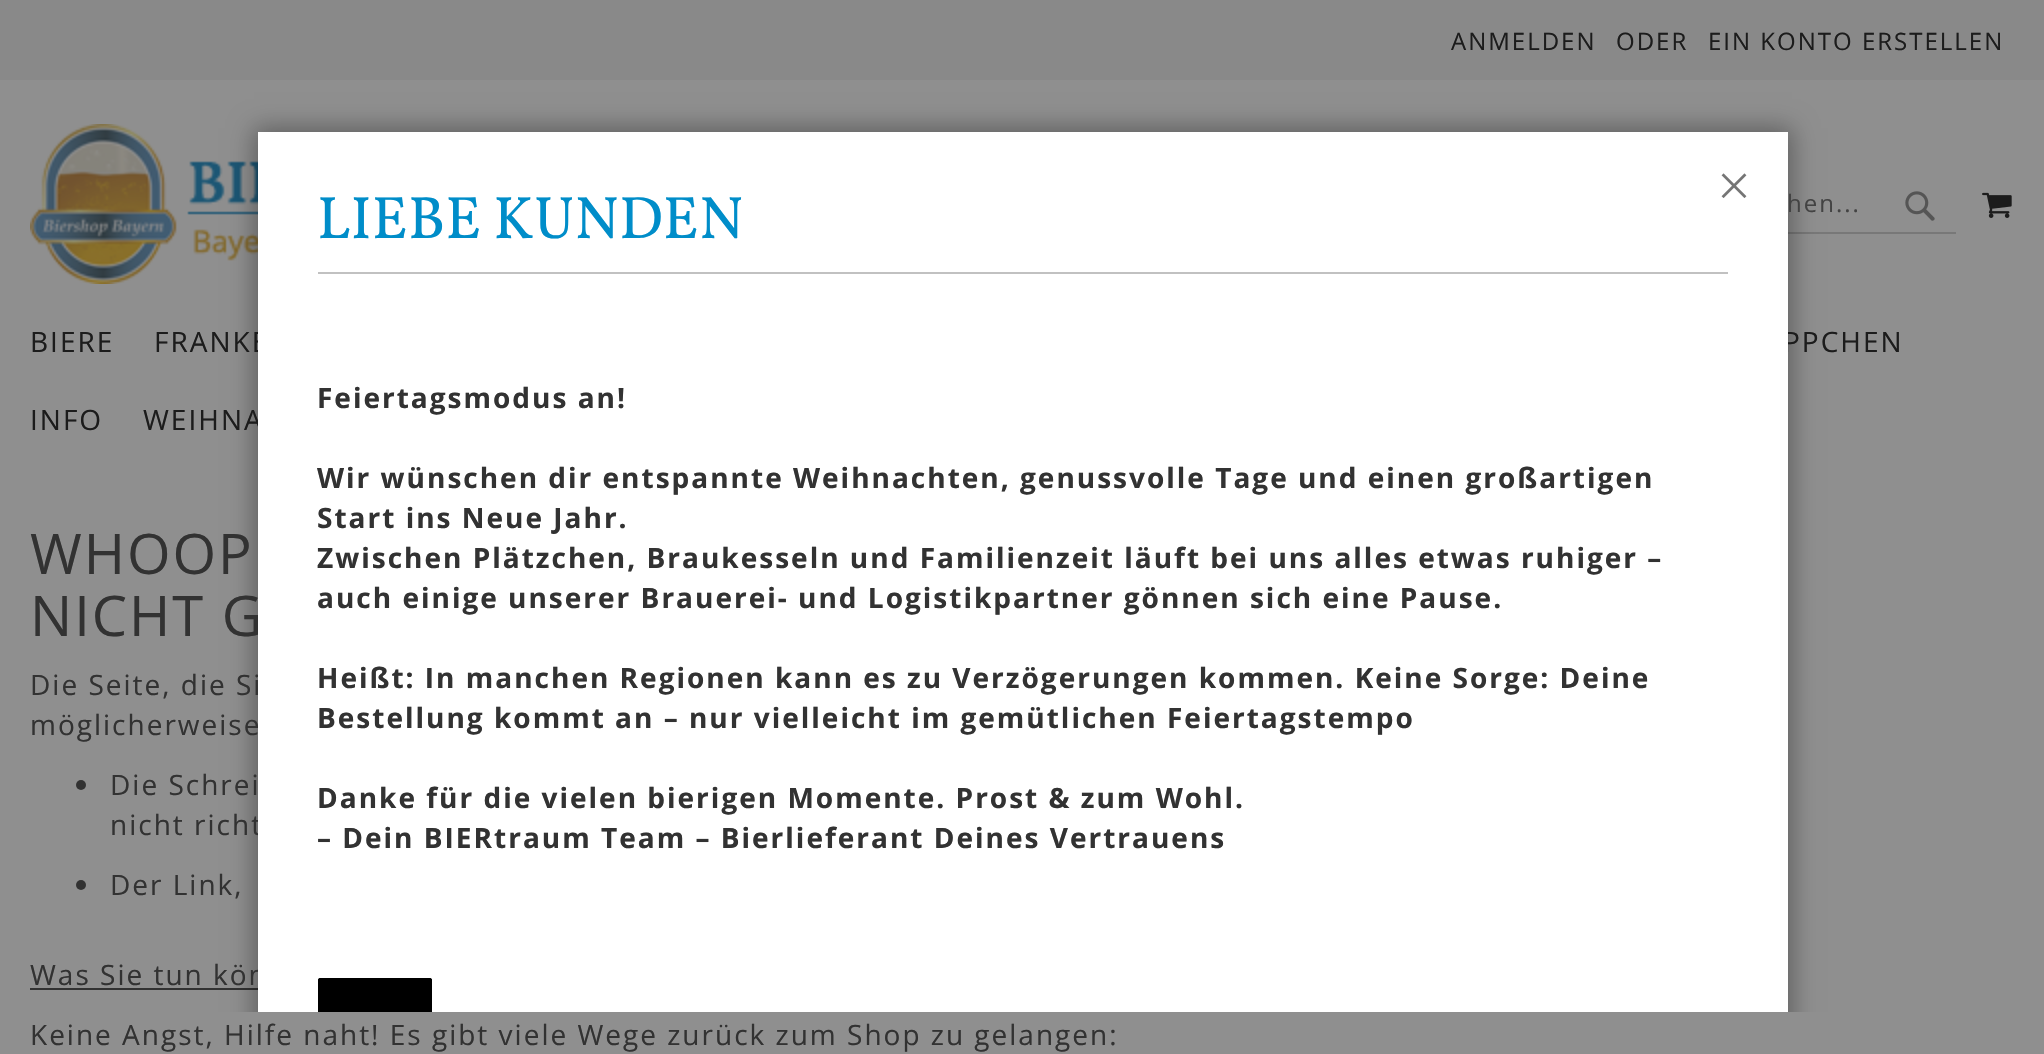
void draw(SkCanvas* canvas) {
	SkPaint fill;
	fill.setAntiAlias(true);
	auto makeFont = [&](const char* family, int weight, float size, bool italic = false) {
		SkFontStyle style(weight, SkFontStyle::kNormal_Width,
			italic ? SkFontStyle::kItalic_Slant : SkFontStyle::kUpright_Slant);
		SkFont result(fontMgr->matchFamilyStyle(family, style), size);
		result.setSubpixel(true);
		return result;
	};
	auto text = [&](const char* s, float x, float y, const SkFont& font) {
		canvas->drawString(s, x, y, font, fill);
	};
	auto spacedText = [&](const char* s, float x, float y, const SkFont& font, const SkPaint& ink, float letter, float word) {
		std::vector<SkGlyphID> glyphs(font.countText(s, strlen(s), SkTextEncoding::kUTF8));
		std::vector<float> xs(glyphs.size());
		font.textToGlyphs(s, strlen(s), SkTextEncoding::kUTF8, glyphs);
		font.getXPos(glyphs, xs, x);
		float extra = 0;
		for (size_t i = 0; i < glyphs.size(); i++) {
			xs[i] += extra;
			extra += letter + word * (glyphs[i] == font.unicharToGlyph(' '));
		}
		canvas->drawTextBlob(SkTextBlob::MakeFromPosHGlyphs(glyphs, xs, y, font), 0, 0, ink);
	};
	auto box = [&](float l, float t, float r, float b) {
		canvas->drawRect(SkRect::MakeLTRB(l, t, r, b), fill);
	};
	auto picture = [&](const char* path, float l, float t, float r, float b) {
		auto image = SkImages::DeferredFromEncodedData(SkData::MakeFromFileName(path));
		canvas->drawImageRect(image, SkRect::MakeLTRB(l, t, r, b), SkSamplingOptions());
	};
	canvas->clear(0xFF8F8F8F);
	fill.setColor(0xFF898989);
	box(0, 0, 2044, 80);
	picture("image0.png", 30, 124, 258, 284);
	fill.setColor(0xFF787878);
	box(1788, 232, 1956, 234);
	picture("image1.png", 1905, 191, 1935, 221);
	picture("image2.png", 1982, 192, 2012, 218);
	fill.setColor(0xFF323232);
	canvas->drawCircle(81, 785, 5, fill);
	canvas->drawCircle(81, 885, 5, fill);
	box(30, 988, 258, 990);
	canvas->save();
	canvas->clipPath(SkPathBuilder().moveTo(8, 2).lineTo(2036, 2).cubicTo(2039.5f, 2, 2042, 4.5f, 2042, 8).lineTo(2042, 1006).cubicTo(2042, 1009.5f, 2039.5f, 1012, 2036, 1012).lineTo(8, 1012).cubicTo(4.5f, 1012, 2, 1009.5f, 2, 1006).lineTo(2, 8).cubicTo(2, 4.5f, 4.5f, 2, 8, 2).close().detach(), true);
	fill.setColor(0x59000000);
	fill.setMaskFilter(SkMaskFilter::MakeBlur(kNormal_SkBlurStyle, 12));
	canvas->drawRect(SkRect::MakeLTRB(254, 128, 1792, 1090), fill);
	fill.setMaskFilter(nullptr);
	canvas->restore();
	auto font1 = makeFont("Open Sans", 400, 24);
	fill.setColor(0xFF1C1C1C);
	spacedText("ANMELDEN", 1451, 50, font1, fill, 2, 0);
	spacedText("ODER", 1616, 50, font1, fill, 2, 0);
	spacedText("EIN KONTO ERSTELLEN", 1708, 50, font1, fill, 2, 0);
	fill.setColor(0xFF434343);
	spacedText("hen...", 1787, 212, font1, fill, 2, 0);
	auto font2 = makeFont("Open Sans", 400, 28);
	fill.setColor(0xFF1C1C1C);
	spacedText("BIERE", 30, 352, font2, fill, 2, 0);
	spacedText("FRANKE", 154, 352, font2, fill, 2, 0);
	spacedText("PPCHEN", 1783, 352, font2, fill, 2, 0);
	spacedText("INFO", 30, 430, font2, fill, 2, 0);
	spacedText("WEIHNA", 143, 430, font2, fill, 2, 0);
	auto font3 = makeFont("Open Sans", 400, 56);
	fill.setColor(0xFF323232);
	spacedText("WHOOP", 30, 574, font3, fill, 2, 0);
	spacedText("NICHT G", 30, 636, font3, fill, 2, 0);
	spacedText("Die Seite, die Si", 30, 695, font2, fill, 2, 0);
	spacedText("möglicherweise", 30, 735, font2, fill, 2, 0);
	spacedText("Die Schrei", 110, 795, font2, fill, 2, 0);
	spacedText("nicht richt", 110, 835, font2, fill, 2, 0);
	spacedText("Der Link,", 110, 895, font2, fill, 2, 0);
	spacedText("Was Sie tun kön", 30, 985, font2, fill, 2, 0);
	spacedText("Keine Angst, Hilfe naht! Es gibt viele Wege zurück zum Shop zu gelangen:", 30, 1045, font2, fill, 2, 0);
	fill.setColor(0xFFFFFFFF);
	box(258, 132, 1788, 1012);
	picture("image3.png", 1721, 173, 1747, 198);
	fill.setColor(0xFFC1C1C1);
	box(318, 272, 1728, 274);
	auto font4 = makeFont("Vollkorn", 400, 60);
	fill.setColor(0xFF008DC9);
	text("LIEBE KUNDEN", 317, 238, font4);
	auto font5 = makeFont("Open Sans", 700, 28);
	fill.setColor(0xFF323232);
	spacedText("Feiertagsmodus an!", 317, 408, font5, fill, 2, 0);
	spacedText("Wir wünschen dir entspannte Weihnachten, genussvolle Tage und einen großartigen", 317, 488, font5, fill, 2, 0);
	spacedText("Start ins Neue Jahr.", 317, 528, font5, fill, 2, 0);
	spacedText("Zwischen Plätzchen, Braukesseln und Familienzeit läuft bei uns alles etwas ruhiger –", 317, 568, font5, fill, 2, 0);
	spacedText("auch einige unserer Brauerei- und Logistikpartner gönnen sich eine Pause.", 317, 608, font5, fill, 2, 0);
	spacedText("Heißt: In manchen Regionen kann es zu Verzögerungen kommen. Keine Sorge: Deine", 317, 688, font5, fill, 2, 0);
	spacedText("Bestellung kommt an – nur vielleicht im gemütlichen Feiertagstempo", 317, 728, font5, fill, 2, 0);
	spacedText("Danke für die vielen bierigen Momente. Prost & zum Wohl.", 317, 808, font5, fill, 2, 0);
	spacedText("– Dein BIERtraum Team – Bierlieferant Deines Vertrauens", 317, 848, font5, fill, 2, 0);
	fill.setColor(0xFF000000);
	canvas->drawPath(SkPathBuilder().moveTo(320, 978).lineTo(430, 978).cubicTo(431, 978, 432, 979, 432, 980).lineTo(432, 1012).lineTo(318, 1012).lineTo(318, 980).cubicTo(318, 979, 319, 978, 320, 978).close().detach(), fill);
	canvas->drawPath(SkPathBuilder().moveTo(320, 978).cubicTo(319, 978, 318, 979, 318, 980).lineTo(318, 1012).lineTo(320, 1012).lineTo(320, 980).lineTo(430, 980).lineTo(430, 1012).lineTo(432, 1012).lineTo(432, 980).cubicTo(432, 979, 431, 978, 430, 978).close().detach(), fill);
}
